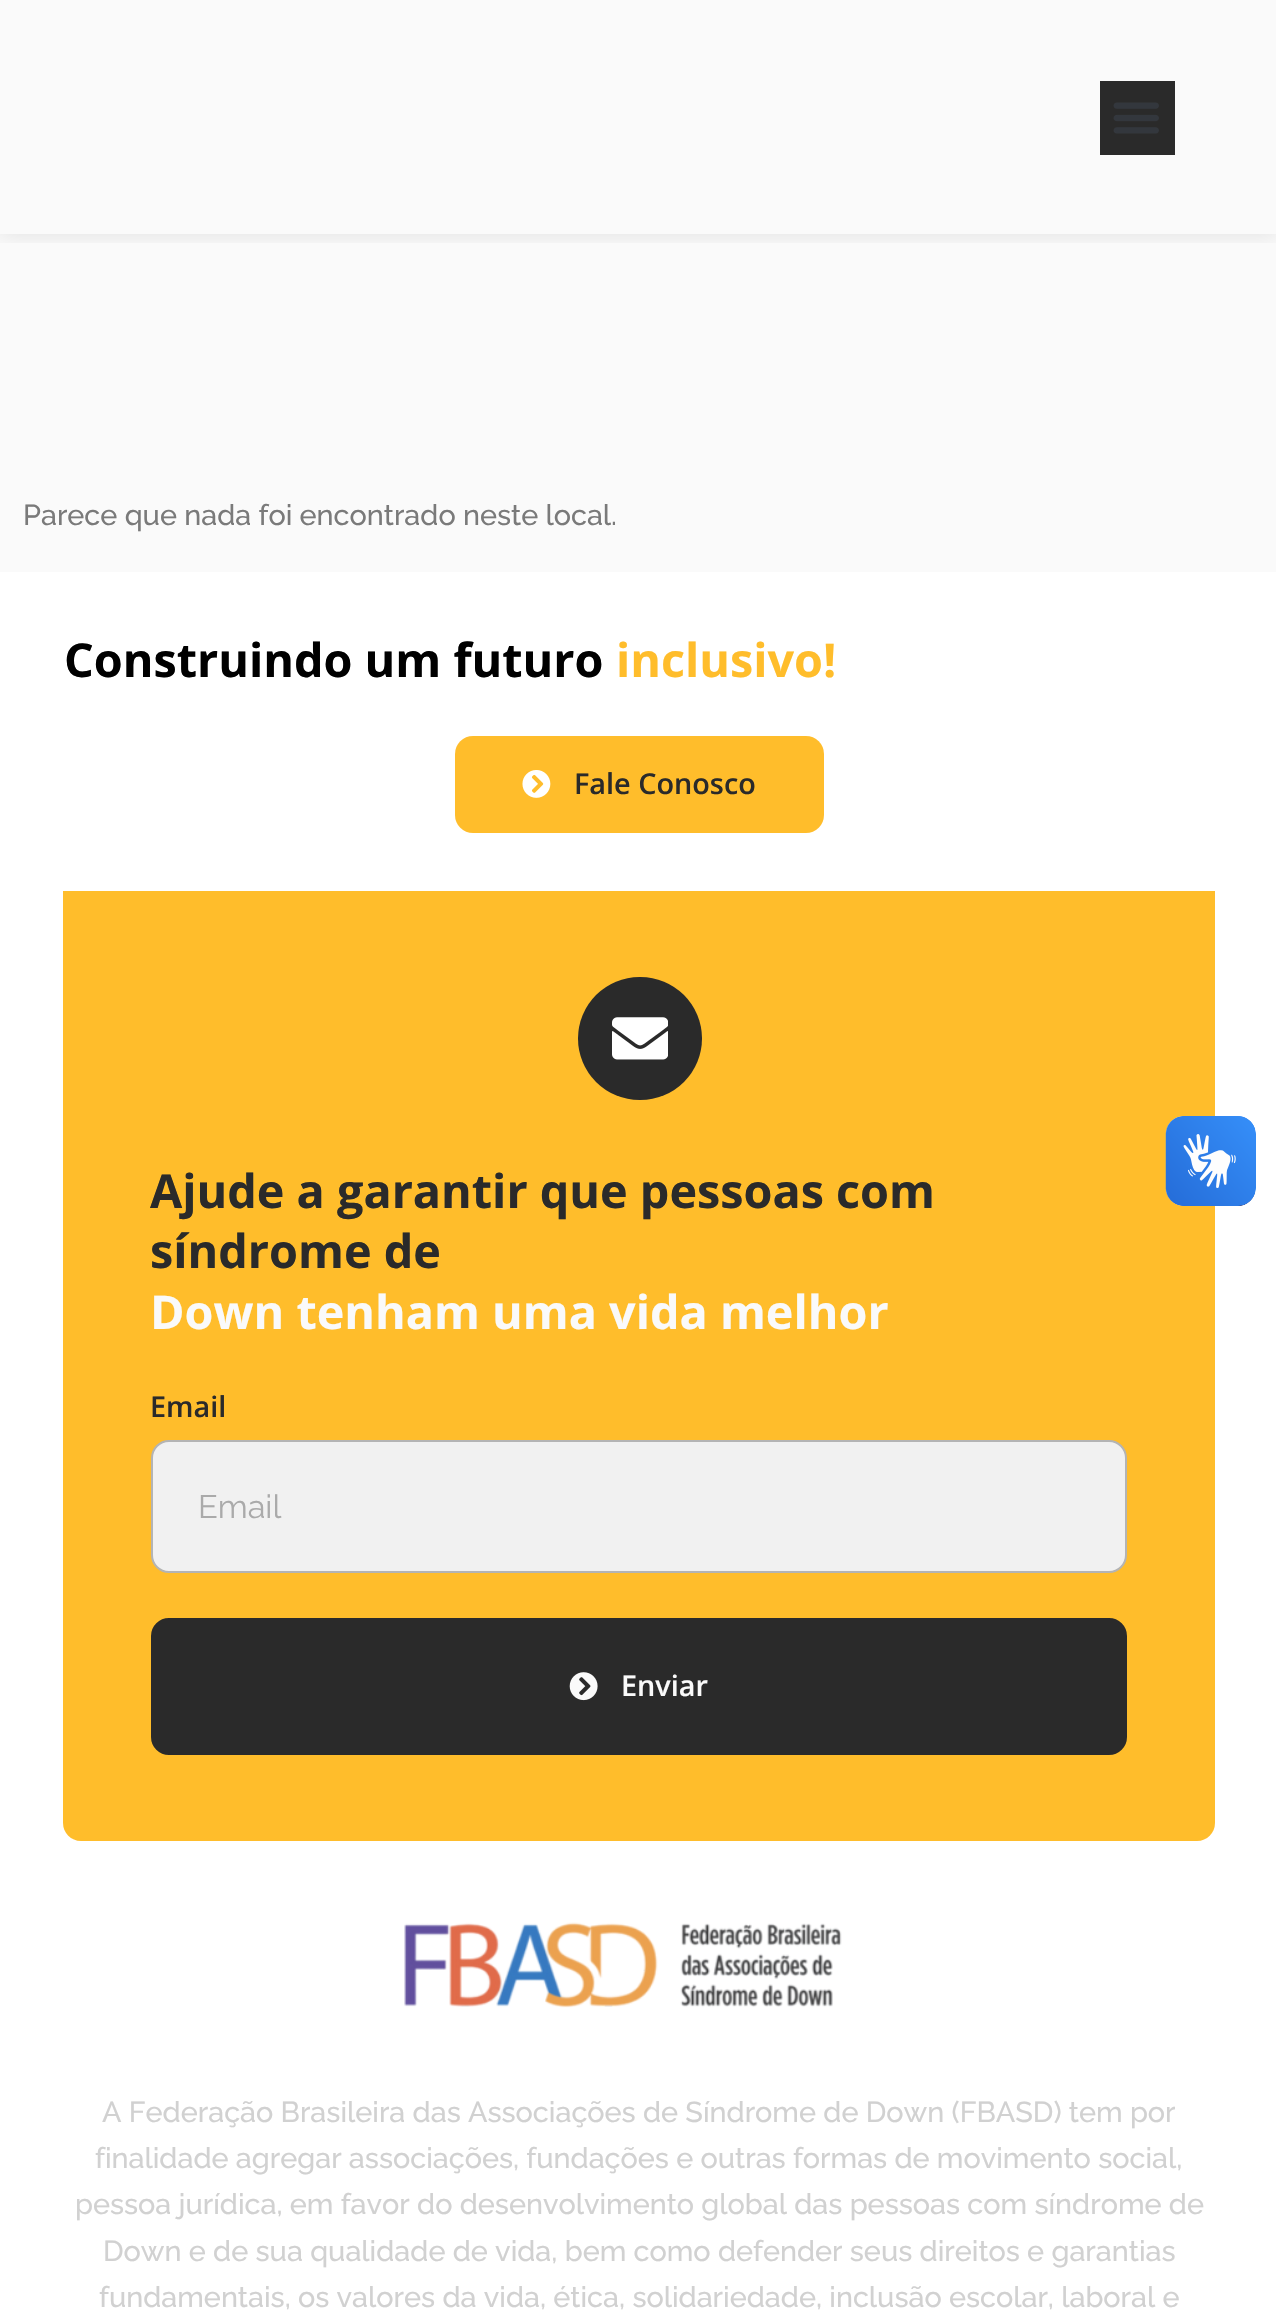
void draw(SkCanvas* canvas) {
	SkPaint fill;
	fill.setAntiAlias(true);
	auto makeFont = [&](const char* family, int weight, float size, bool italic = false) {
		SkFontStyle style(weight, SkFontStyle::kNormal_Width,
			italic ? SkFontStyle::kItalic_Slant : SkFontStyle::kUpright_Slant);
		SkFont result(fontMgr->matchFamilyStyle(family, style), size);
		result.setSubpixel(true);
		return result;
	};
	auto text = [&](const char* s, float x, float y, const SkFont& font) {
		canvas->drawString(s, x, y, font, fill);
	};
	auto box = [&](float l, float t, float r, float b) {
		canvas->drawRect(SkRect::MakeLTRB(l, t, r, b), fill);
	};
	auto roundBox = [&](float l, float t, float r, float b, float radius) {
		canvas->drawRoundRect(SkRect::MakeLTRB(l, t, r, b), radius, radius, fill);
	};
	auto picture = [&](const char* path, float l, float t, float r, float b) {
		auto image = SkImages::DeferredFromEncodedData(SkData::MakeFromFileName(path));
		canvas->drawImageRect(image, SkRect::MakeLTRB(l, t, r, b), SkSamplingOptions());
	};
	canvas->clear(0xFFFAFAFA);
	canvas->save();
	canvas->clipRect(SkRect::MakeLTRB(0, 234, 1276, 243));
	fill.setColor(0x1A000000);
	fill.setMaskFilter(SkMaskFilter::MakeBlur(kNormal_SkBlurStyle, 11));
	canvas->drawRect(SkRect::MakeLTRB(0, 0, 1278, 234), fill);
	fill.setMaskFilter(nullptr);
	canvas->restore();
	fill.setColor(0xFF2A2A2A);
	box(1100, 81, 1175, 155);
	picture("image0.png", 1113, 102, 1159, 134);
	fill.setColor(0xFFFFFFFF);
	box(0, 572, 1276, 2321);
	fill.setColor(0xFFFFBD2B);
	roundBox(455, 736, 824, 833, 18);
	picture("image1.png", 522, 770, 551, 798);
	canvas->drawPath(SkPathBuilder().moveTo(63, 891).lineTo(1215, 891).lineTo(1215, 1823).cubicTo(1215, 1833, 1207, 1841, 1197, 1841).lineTo(81, 1841).cubicTo(71, 1841, 63, 1833, 63, 1823).close().detach(), fill);
	fill.setColor(0xFF2A2A2A);
	roundBox(578, 977, 702, 1100, 61.5f);
	picture("image2.png", 612, 1017, 668, 1060);
	fill.setColor(0xFFF1F1F1);
	canvas->drawRoundRect(SkRect::MakeLTRB(152, 1441, 1126, 1572), 17, 17, fill);
	fill.setStyle(SkPaint::kStroke_Style);
	fill.setStrokeWidth(2);
	fill.setColor(0xFFB4B4B4);
	canvas->drawRoundRect(SkRect::MakeLTRB(152, 1441, 1126, 1572), 17, 17, fill);
	fill.setStyle(SkPaint::kFill_Style);
	fill.setColor(0xFF2A2A2A);
	canvas->drawRoundRect(SkRect::MakeLTRB(152, 1619, 1126, 1754), 17, 17, fill);
	fill.setStyle(SkPaint::kStroke_Style);
	canvas->drawRoundRect(SkRect::MakeLTRB(152, 1619, 1126, 1754), 17, 17, fill);
	picture("image3.png", 569, 1672, 598, 1701);
	picture("image4.png", 404, 1922, 842, 2008);
	picture("image5.png", 1165, 1116, 1256, 1206);
	picture("image6.png", 1166, 1116, 1256, 1206);
	auto font1 = makeFont("Raleway", 500, 28.8f);
	fill.setStyle(SkPaint::kFill_Style);
	fill.setColor(0xFF7A7A7A);
	text("Parece que nada foi encontrado neste local.", 23, 525, font1);
	auto font2 = makeFont("Open Sans", 700, 46.75f);
	fill.setColor(0xFF000000);
	text("Construindo um futuro", 64, 677, font2);
	fill.setColor(0xFFFFBD2B);
	text("inclusivo!", 616, 677, font2);
	auto font3 = makeFont("Open Sans", 600, 28.8f);
	fill.setColor(0xFF2A2A2A);
	text("Fale Conosco", 574, 794, font3);
	text("Ajude a garantir que pessoas com", 150, 1208, font2);
	text("síndrome de", 150, 1268, font2);
	fill.setColor(0xFFFAFAFA);
	text("Down tenham uma vida melhor", 150, 1329, font2);
	fill.setColor(0xFF2A2A2A);
	text("Email", 150, 1417, font3);
	auto font4 = makeFont("Raleway", 400, 32.5f);
	fill.setColor(0xFFAAAAAA);
	text("Email", 198, 1518, font4);
	fill.setColor(0xFFFAFAFA);
	text("Enviar", 621, 1696, font3);
	fill.setColor(0xFFD1D1D1);
	text("A Federação Brasileira das Associações de Síndrome de Down (FBASD) tem por", 102, 2122, font1);
	text("finalidade agregar associações, fundações e outras formas de movimento social,", 95, 2168, font1);
	text("pessoa jurídica, em favor do desenvolvimento global das pessoas com síndrome de", 75, 2214, font1);
	text("Down e de sua qualidade de vida, bem como defender seus direitos e garantias", 103, 2261, font1);
	text("fundamentais, os valores da vida, ética, solidariedade, inclusão escolar, laboral e", 99, 2307, font1);
}
